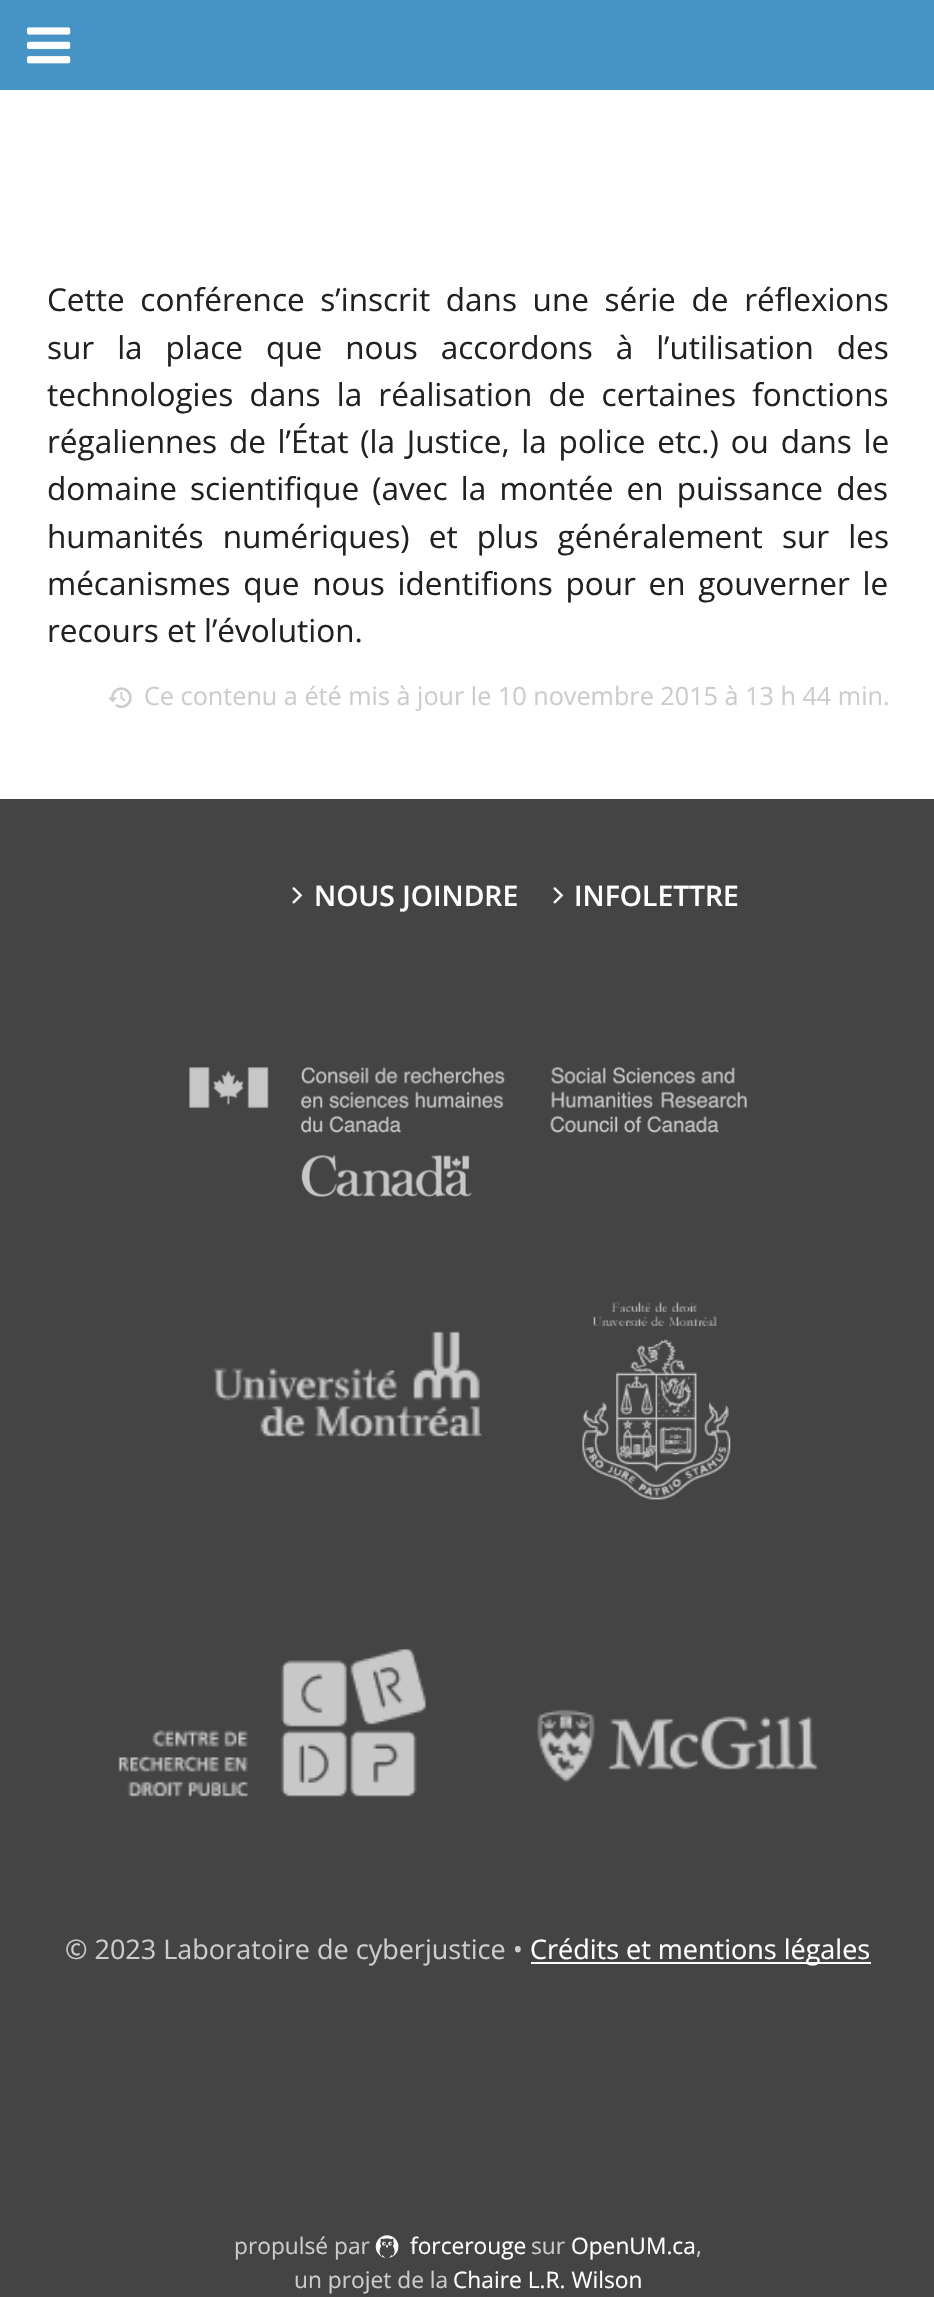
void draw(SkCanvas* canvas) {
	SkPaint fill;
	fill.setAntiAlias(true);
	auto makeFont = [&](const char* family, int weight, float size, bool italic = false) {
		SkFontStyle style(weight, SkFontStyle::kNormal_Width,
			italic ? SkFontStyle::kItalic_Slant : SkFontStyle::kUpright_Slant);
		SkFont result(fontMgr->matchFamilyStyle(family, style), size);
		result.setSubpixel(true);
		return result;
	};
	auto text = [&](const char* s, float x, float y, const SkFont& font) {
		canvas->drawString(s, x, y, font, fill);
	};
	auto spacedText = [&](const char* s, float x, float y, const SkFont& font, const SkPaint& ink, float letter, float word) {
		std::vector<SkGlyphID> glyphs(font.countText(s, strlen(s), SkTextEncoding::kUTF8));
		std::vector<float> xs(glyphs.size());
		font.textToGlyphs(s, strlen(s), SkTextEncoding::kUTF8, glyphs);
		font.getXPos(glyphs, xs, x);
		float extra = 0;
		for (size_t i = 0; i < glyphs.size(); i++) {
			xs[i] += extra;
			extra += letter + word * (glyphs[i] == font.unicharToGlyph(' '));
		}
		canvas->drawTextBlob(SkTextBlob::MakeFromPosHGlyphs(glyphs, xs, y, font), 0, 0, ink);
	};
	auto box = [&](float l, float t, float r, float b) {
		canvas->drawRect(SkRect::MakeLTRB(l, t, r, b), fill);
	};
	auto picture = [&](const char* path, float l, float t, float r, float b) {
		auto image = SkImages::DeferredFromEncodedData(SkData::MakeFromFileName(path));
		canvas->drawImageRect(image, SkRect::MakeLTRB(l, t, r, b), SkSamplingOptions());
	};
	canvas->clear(0xFFFFFFFF);
	fill.setColor(0xFF4694C5);
	box(0, 0, 934, 90);
	picture("image0.png", 27, 27, 71, 64);
	picture("image1.png", 108, 687, 132, 708);
	fill.setColor(0xFF444444);
	box(0, 799, 934, 2297);
	picture("image2.png", 292, 887, 303, 904);
	picture("image2.png", 553, 887, 564, 904);
	picture("image3.png", 189, 1067, 747, 1197);
	picture("image4.png", 213, 1331, 482, 1437);
	picture("image5.png", 582, 1301, 731, 1500);
	picture("image6.png", 118, 1649, 426, 1797);
	picture("image7.png", 537, 1709, 818, 1783);
	fill.setColor(0xFFFFFFFF);
	box(531, 1962, 871, 1964);
	picture("image8.png", 375, 2235, 399, 2258);
	auto font1 = makeFont("Open Sans", 400, 31.5f);
	fill.setColor(0xFF212121);
	spacedText("Cette conférence s’inscrit dans une série de réflexions", 47, 311, font1, fill, 0, 7.5f);
	spacedText("sur la place que nous accordons à l’utilisation des", 47, 359, font1, fill, 0, 14.75f);
	spacedText("technologies dans la réalisation de certaines fonctions", 47, 406, font1, fill, 0, 8);
	spacedText("régaliennes de l’État (la Justice, la police etc.) ou dans le", 47, 453, font1, fill, 0, 3.6f);
	spacedText("domaine scientifique (avec la montée en puissance des", 47, 500, font1, fill, 0, 5);
	spacedText("humanités numériques) et plus généralement sur les", 47, 548, font1, fill, 0, 11);
	spacedText("mécanismes que nous identifions pour en gouverner le", 47, 595, font1, fill, 0, 4.5f);
	text("recours et l’évolution.", 47, 642, font1);
	auto font2 = makeFont("Open Sans", 400, 25.2f);
	fill.setColor(0xFFCCCCCC);
	text("Ce contenu a été mis à jour le 10 novembre 2015 à 13 h 44 min.", 144, 705, font2);
	auto font3 = makeFont("Open Sans", 600, 28.25f);
	fill.setColor(0xFFFFFFFF);
	text("NOUS JOINDRE", 314, 906, font3);
	text("INFOLETTRE", 574, 906, font3);
	auto font4 = makeFont("Open Sans", 400, 27);
	fill.setColor(0xFFCCCCCC);
	text("© 2023 Laboratoire de cyberjustice •", 65, 1959, font4);
	fill.setColor(0xFFFFFFFF);
	text("Crédits et mentions légales", 530, 1959, font4);
	auto font5 = makeFont("Open Sans", 400, 22.75f);
	fill.setColor(0xFFCCCCCC);
	text("propulsé par", 234, 2254, font5);
	fill.setColor(0xFFFFFFFF);
	text("forcerouge", 410, 2254, font5);
	fill.setColor(0xFFCCCCCC);
	text("sur", 531, 2254, font5);
	fill.setColor(0xFFFFFFFF);
	text("OpenUM.ca", 571, 2254, font5);
	fill.setColor(0xFFCCCCCC);
	text(",", 696, 2254, font5);
	text("un projet de la", 294, 2288, font5);
	fill.setColor(0xFFFFFFFF);
	text("Chaire L.R. Wilson", 453, 2288, font5);
}
